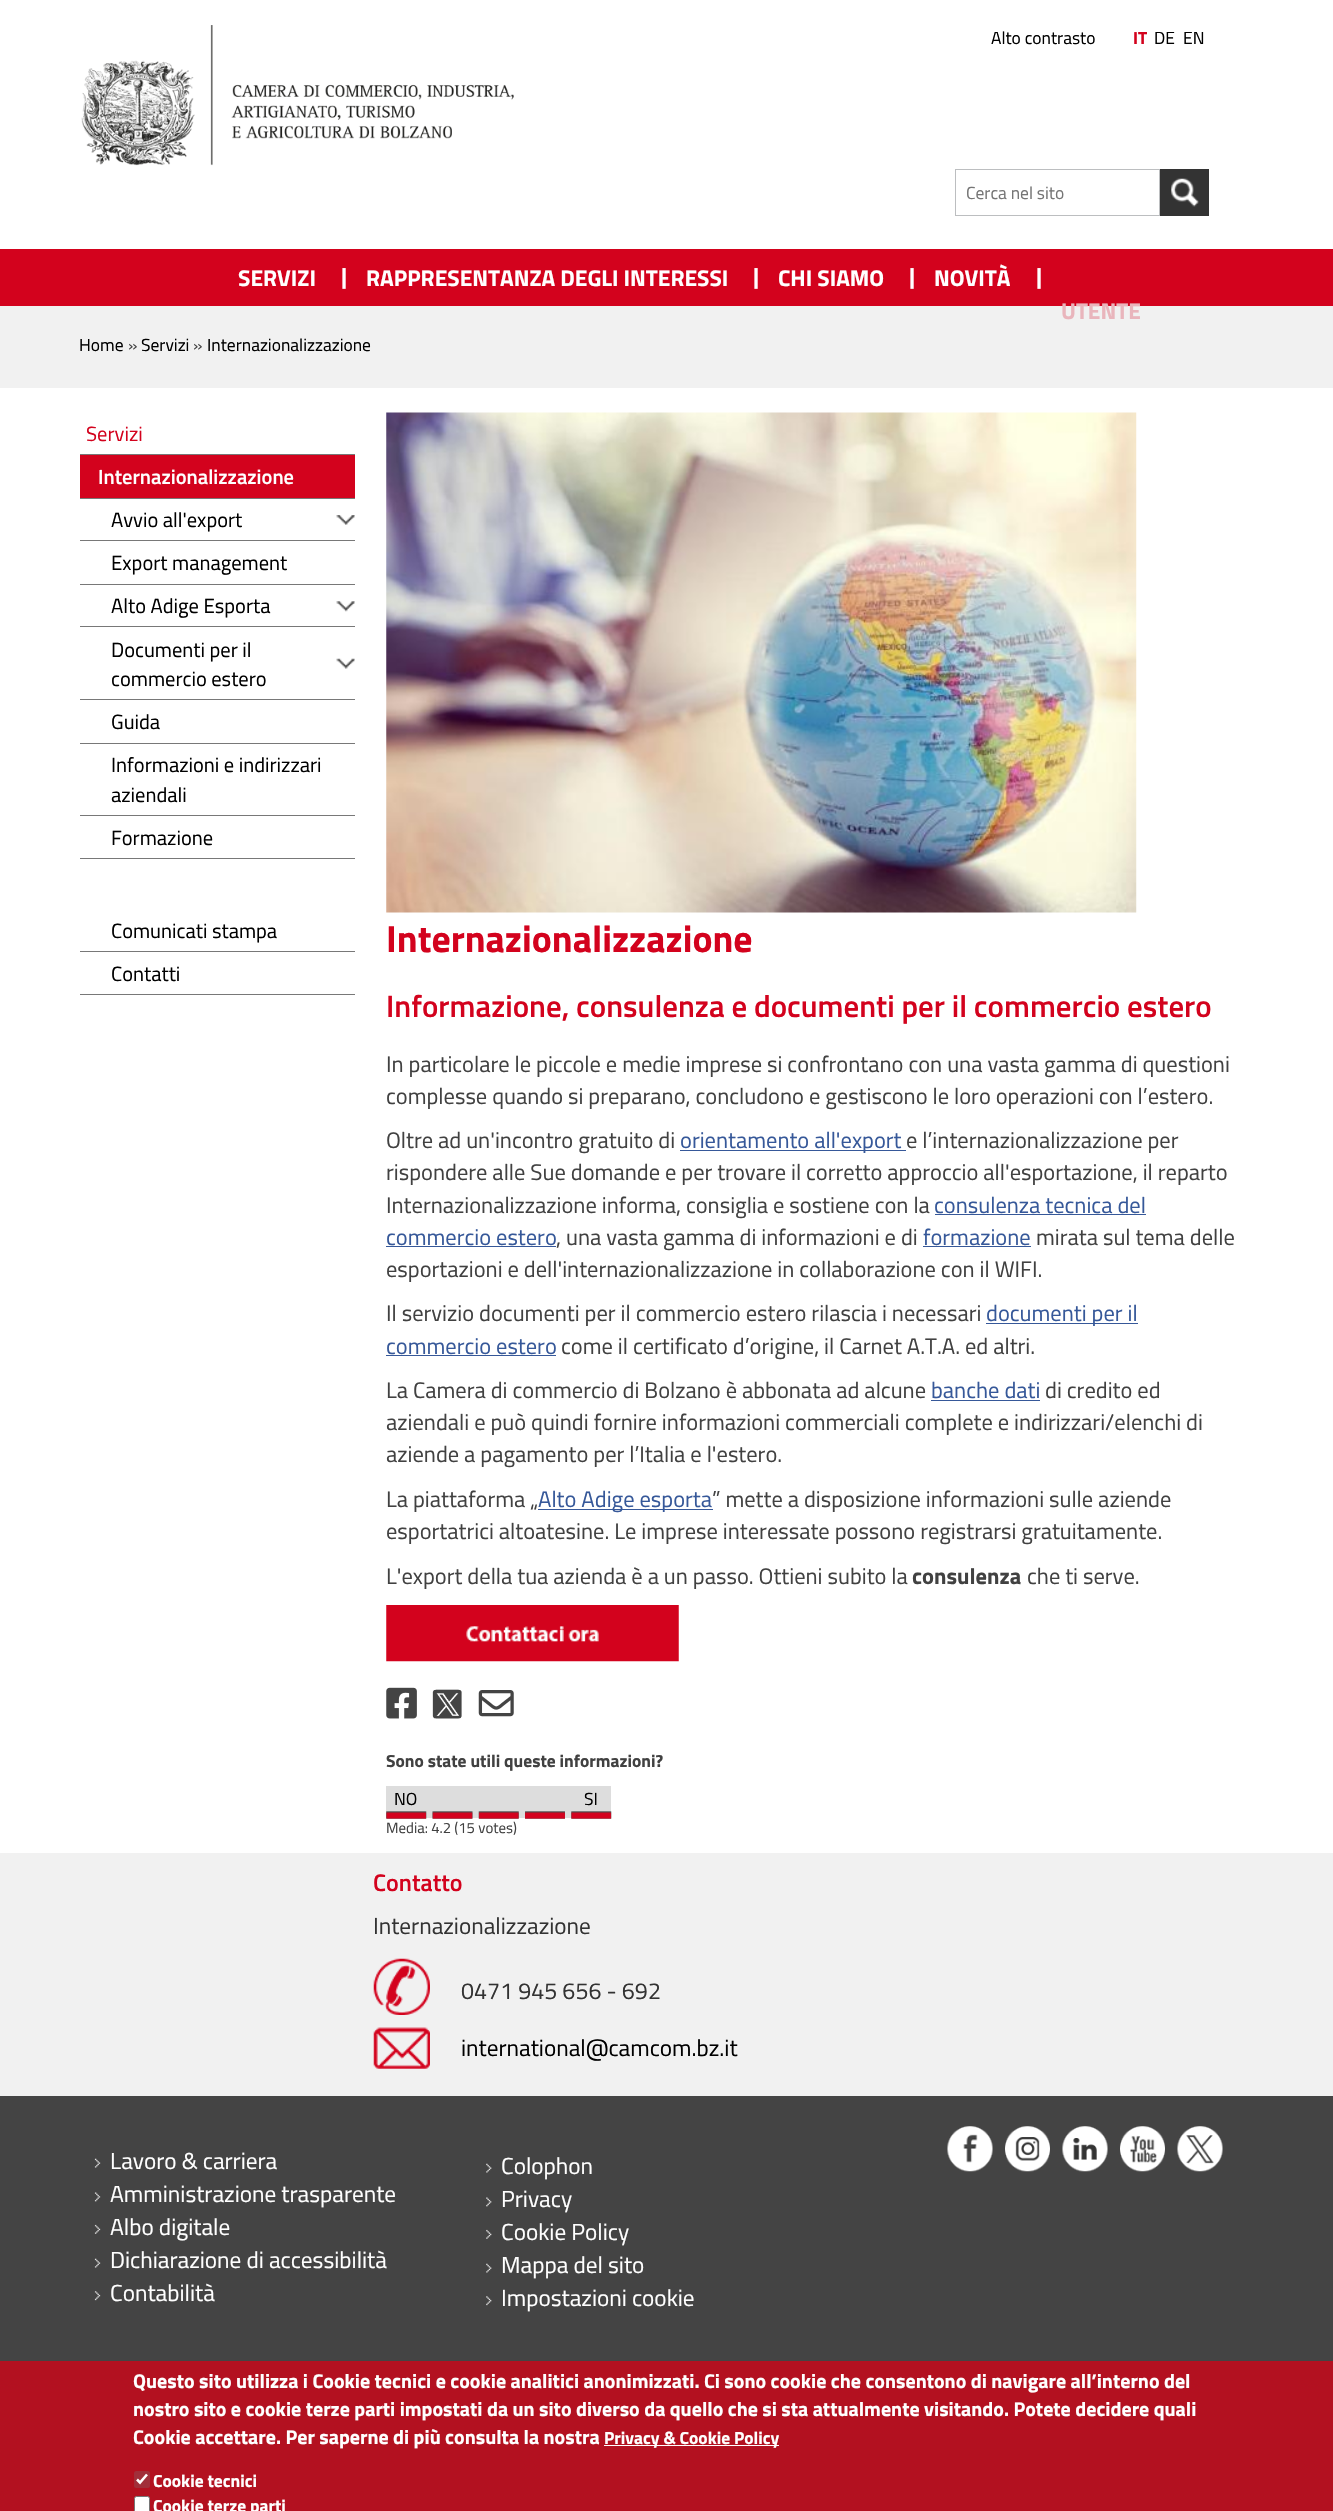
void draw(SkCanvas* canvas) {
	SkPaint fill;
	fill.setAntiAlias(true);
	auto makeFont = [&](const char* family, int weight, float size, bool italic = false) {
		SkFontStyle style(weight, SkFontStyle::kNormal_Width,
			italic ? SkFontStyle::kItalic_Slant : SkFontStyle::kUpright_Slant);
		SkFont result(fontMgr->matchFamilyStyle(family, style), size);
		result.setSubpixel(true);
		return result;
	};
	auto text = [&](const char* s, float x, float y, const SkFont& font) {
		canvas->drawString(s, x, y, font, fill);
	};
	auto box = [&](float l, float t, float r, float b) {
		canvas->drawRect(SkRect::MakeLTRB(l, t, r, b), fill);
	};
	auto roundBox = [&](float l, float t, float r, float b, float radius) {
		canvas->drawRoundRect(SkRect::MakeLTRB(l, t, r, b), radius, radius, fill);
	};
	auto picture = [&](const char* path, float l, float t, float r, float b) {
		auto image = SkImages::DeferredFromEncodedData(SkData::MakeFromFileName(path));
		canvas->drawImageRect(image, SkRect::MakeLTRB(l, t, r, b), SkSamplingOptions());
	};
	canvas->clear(0xFFFFFFFF);
	picture("image0.png", 81, 25, 514, 166);
	fill.setStyle(SkPaint::kStroke_Style);
	fill.setStrokeWidth(1);
	fill.setColor(0xFFBCBEC0);
	canvas->drawRect(SkRect::MakeLTRB(955.5f, 169.5f, 1159.5f, 215.5f), fill);
	fill.setStyle(SkPaint::kFill_Style);
	fill.setColor(0xFF333333);
	box(1160, 169, 1209, 216);
	picture("image1.png", 1171, 178, 1199, 207);
	fill.setColor(0xFFD3021D);
	box(0, 249, 1333, 306);
	fill.setColor(0xFFF1F1F1);
	box(0, 306, 1333, 388);
	fill.setColor(0xFF787878);
	box(80, 454, 355, 455);
	fill.setColor(0xFFD3021D);
	box(80, 455, 355, 498);
	fill.setColor(0xFF787878);
	box(80, 498, 355, 499);
	picture("image2.png", 336, 515, 355, 525);
	box(80, 540, 355, 541);
	box(80, 584, 355, 585);
	picture("image3.png", 336, 601, 355, 612);
	box(80, 626, 355, 627);
	picture("image4.png", 336, 658, 355, 669);
	box(80, 699, 355, 700);
	box(80, 743, 355, 744);
	box(80, 815, 355, 816);
	box(80, 858, 355, 859);
	box(80, 951, 355, 952);
	box(80, 994, 355, 995);
	picture("image5.png", 386, 412, 1137, 913);
	fill.setColor(0xFF365899);
	box(680, 1150, 906, 1151);
	box(935, 1214, 1146, 1215);
	box(386, 1246, 556, 1247);
	box(923, 1246, 1031, 1247);
	box(986, 1323, 1138, 1324);
	box(386, 1355, 556, 1356);
	box(931, 1400, 1040, 1401);
	box(538, 1509, 713, 1510);
	picture("image6.png", 386, 1605, 679, 1662);
	picture("image7.png", 386, 1687, 417, 1719);
	picture("image8.png", 432, 1689, 462, 1719);
	picture("image9.png", 478, 1690, 514, 1717);
	fill.setColor(0xFFDDDDDD);
	box(386, 1786, 611, 1818);
	picture("image10.png", 386, 1811, 427, 1819);
	picture("image11.png", 386, 1812, 427, 1819);
	picture("image12.png", 432, 1811, 473, 1819);
	picture("image13.png", 432, 1812, 473, 1819);
	picture("image14.png", 478, 1811, 519, 1819);
	picture("image15.png", 478, 1812, 519, 1819);
	picture("image16.png", 525, 1811, 565, 1819);
	picture("image17.png", 525, 1812, 565, 1819);
	picture("image18.png", 571, 1811, 612, 1819);
	picture("image19.png", 571, 1812, 612, 1819);
	fill.setColor(0xFFF1F1F1);
	box(0, 1853, 1333, 2096);
	picture("image20.png", 373, 1958, 430, 2015);
	picture("image21.png", 373, 2027, 430, 2069);
	fill.setColor(0xFF444444);
	box(0, 2096, 1333, 2361);
	picture("image22.png", 94, 2158, 101, 2168);
	picture("image23.png", 94, 2192, 101, 2202);
	picture("image24.png", 94, 2224, 101, 2234);
	picture("image22.png", 94, 2258, 101, 2268);
	picture("image25.png", 94, 2291, 101, 2301);
	picture("image26.png", 486, 2163, 492, 2173);
	picture("image27.png", 486, 2197, 492, 2207);
	picture("image28.png", 486, 2229, 492, 2239);
	picture("image26.png", 486, 2263, 492, 2273);
	picture("image29.png", 486, 2296, 492, 2306);
	picture("image30.png", 947, 2126, 993, 2172);
	picture("image31.png", 1005, 2126, 1050, 2172);
	picture("image32.png", 1062, 2126, 1108, 2172);
	picture("image33.png", 1120, 2126, 1165, 2172);
	picture("image34.png", 1177, 2126, 1223, 2172);
	fill.setColor(0xFFB31120);
	box(0, 2361, 1333, 2511);
	fill.setColor(0xFFFFFFFF);
	box(604, 2445, 779, 2446);
	fill.setColor(0xFFA12F3A);
	roundBox(134, 2471, 150, 2488, 2.5f);
	fill.setStyle(SkPaint::kStroke_Style);
	fill.setStrokeWidth(2.6f);
	fill.setColor(0xFFFFFFFF);
	canvas->drawPath(SkPathBuilder().moveTo(137, 2479.5f).lineTo(140, 2482.5f).lineTo(147, 2474.5f).detach(), fill);
	fill.setStyle(SkPaint::kFill_Style);
	canvas->drawRoundRect(SkRect::MakeLTRB(134.5f, 2496.5f, 149.5f, 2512.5f), 2, 2, fill);
	fill.setStyle(SkPaint::kStroke_Style);
	fill.setStrokeWidth(1);
	fill.setColor(0xFF767676);
	canvas->drawRoundRect(SkRect::MakeLTRB(134.5f, 2496.5f, 149.5f, 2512.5f), 2, 2, fill);
	auto font1 = makeFont("Titillium Web", 400, 17.5f);
	fill.setStyle(SkPaint::kFill_Style);
	fill.setColor(0xFF000000);
	text("Alto contrasto", 991, 44, font1);
	auto font2 = makeFont("Titillium Web", 700, 17.5f);
	fill.setColor(0xFFD3021D);
	text("IT", 1133, 44, font2);
	fill.setColor(0xFF000000);
	text("DE", 1154, 44, font1);
	text("EN", 1183, 44, font1);
	fill.setColor(0xFF757575);
	text("Cerca nel sito", 966, 199, font1);
	auto font3 = makeFont("Titillium Web", 700, 22.75f);
	fill.setColor(0xFFFFFFFF);
	text("SERVIZI", 238, 286, font3);
	text("|", 341, 284, font3);
	text("RAPPRESENTANZA DEGLI INTERESSI", 366, 286, font3);
	text("|", 753, 284, font3);
	text("CHI SIAMO", 778, 286, font3);
	text("|", 909, 284, font3);
	text("NOVITÀ", 934, 286, font3);
	text("|", 1036, 284, font3);
	fill.setColor(0xFFE9B5BC);
	text("UTENTE", 1061, 319, font3);
	fill.setColor(0xFF000000);
	text("Home", 79, 351, font1);
	fill.setColor(0xFF414141);
	text("»", 128, 351, font1);
	fill.setColor(0xFF000000);
	text("Servizi", 141, 351, font1);
	fill.setColor(0xFF414141);
	text("»", 193, 351, font1);
	fill.setColor(0xFF000000);
	text("Internazionalizzazione", 207, 351, font1);
	auto font4 = makeFont("Titillium Web", 400, 20.5f);
	fill.setColor(0xFFD3021D);
	text("Servizi", 86, 441, font4);
	auto font5 = makeFont("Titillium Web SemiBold", 600, 20.5f);
	fill.setColor(0xFFFFFFFF);
	text("Internazionalizzazione", 98, 484, font5);
	fill.setColor(0xFF000000);
	text("Avvio all'export", 111, 527, font4);
	text("Export management", 111, 570, font4);
	text("Alto Adige Esporta", 111, 613, font4);
	text("Documenti per il", 111, 657, font4);
	text("commercio estero", 111, 686, font4);
	text("Guida", 111, 729, font4);
	text("Informazioni e indirizzari", 111, 772, font4);
	text("aziendali", 111, 802, font4);
	text("Formazione", 111, 845, font4);
	text("Comunicati stampa", 111, 938, font4);
	text("Contatti", 111, 981, font4);
	auto font6 = makeFont("Titillium Web", 700, 37.75f);
	fill.setColor(0xFFD3021D);
	text("Internazionalizzazione", 386, 952, font6);
	auto font7 = makeFont("Titillium Web SemiBold", 600, 30.95f);
	text("Informazione, consulenza e documenti per il commercio estero", 386, 1017, font7);
	auto font8 = makeFont("Titillium Web", 400, 22.5f);
	fill.setColor(0xFF414141);
	text("In particolare le piccole e medie imprese si confrontano con una vasta gamma di questioni", 386, 1072, font8);
	text("complesse quando si preparano, concludono e gestiscono le loro operazioni con l’estero.", 386, 1104, font8);
	text("Oltre ad un'incontro gratuito di", 386, 1148, font8);
	fill.setColor(0xFF365899);
	text("orientamento all'export", 680, 1148, font8);
	fill.setColor(0xFF414141);
	text("e l’internazionalizzazione per", 906, 1148, font8);
	text("rispondere alle Sue domande e per trovare il corretto approccio all'esportazione, il reparto", 386, 1180, font8);
	text("Internazionalizzazione informa, consiglia e sostiene con la", 386, 1213, font8);
	fill.setColor(0xFF365899);
	text("consulenza tecnica del", 934, 1213, font8);
	text("commercio estero", 386, 1245, font8);
	fill.setColor(0xFF414141);
	text(", una vasta gamma di informazioni e di", 556, 1245, font8);
	fill.setColor(0xFF365899);
	text("formazione", 923, 1245, font8);
	fill.setColor(0xFF414141);
	text("mirata sul tema delle", 1036, 1245, font8);
	text("esportazioni e dell'internazionalizzazione in collaborazione con il WIFI.", 386, 1277, font8);
	text("Il servizio documenti per il commercio estero rilascia i necessari", 386, 1321, font8);
	fill.setColor(0xFF365899);
	text("documenti per il", 986, 1321, font8);
	text("commercio estero", 386, 1354, font8);
	fill.setColor(0xFF414141);
	text("come il certificato d’origine, il Carnet A.T.A. ed altri.", 561, 1354, font8);
	text("La Camera di commercio di Bolzano è abbonata ad alcune", 386, 1398, font8);
	fill.setColor(0xFF365899);
	text("banche dati", 931, 1398, font8);
	fill.setColor(0xFF414141);
	text("di credito ed", 1045, 1398, font8);
	text("aziendali e può quindi fornire informazioni commerciali complete e indirizzari/elenchi di", 386, 1430, font8);
	text("aziende a pagamento per l’Italia e l'estero.", 386, 1462, font8);
	text("La piattaforma „", 386, 1507, font8);
	fill.setColor(0xFF365899);
	text("Alto Adige esporta", 538, 1507, font8);
	fill.setColor(0xFF414141);
	text("” mette a disposizione informazioni sulle aziende", 712, 1507, font8);
	text("esportatrici altoatesine. Le imprese interessate possono registrarsi gratuitamente.", 386, 1539, font8);
	text("L'export della tua azienda è a un passo. Ottieni subito la", 386, 1584, font8);
	auto font9 = makeFont("Titillium Web", 700, 22.5f);
	text("consulenza", 912, 1584, font9);
	text("che ti serve.", 1027, 1584, font8);
	text("Sono state utili queste informazioni?", 386, 1767, font2);
	fill.setColor(0xFF000000);
	text("NO", 394, 1805, font1);
	text("SI", 584, 1805, font1);
	auto font10 = makeFont("Titillium Web", 400, 14.9f);
	fill.setColor(0xFF414141);
	text("Media: 4.2 (15 votes)", 386, 1833, font10);
	auto font11 = makeFont("Titillium Web SemiBold", 600, 24);
	fill.setColor(0xFFD3021D);
	text("Contatto", 373, 1891, font11);
	auto font12 = makeFont("Titillium Web", 400, 23.25f);
	fill.setColor(0xFF333333);
	text("Internazionalizzazione", 373, 1934, font12);
	text("0471 945 656 - 692", 461, 1999, font12);
	fill.setColor(0xFF000000);
	text("international@camcom.bz.it", 461, 2056, font12);
	fill.setColor(0xFFFFFFFF);
	text("Lavoro & carriera", 110, 2169, font12);
	text("Amministrazione trasparente", 110, 2202, font12);
	text("Albo digitale", 110, 2235, font12);
	text("Dichiarazione di accessibilità", 110, 2268, font12);
	text("Contabilità", 110, 2301, font12);
	text("Colophon", 501, 2174, font12);
	text("Privacy", 501, 2207, font12);
	text("Cookie Policy", 501, 2240, font12);
	text("Mappa del sito", 501, 2273, font12);
	text("Impostazioni cookie", 501, 2306, font12);
	auto font13 = makeFont("Titillium Web", 700, 20);
	text("Questo sito utilizza i Cookie tecnici e cookie analitici anonimizzati. Ci sono cookie che consentono di navigare all’interno del", 133, 2388, font13);
	text("nostro sito e cookie terze parti impostati da un sito diverso da quello che si sta attualmente visitando. Potete decidere quali", 133, 2416, font13);
	text("Cookie accettare. Per saperne di più consulta la nostra", 133, 2444, font13);
	text("Privacy & Cookie Policy", 604, 2444, font2);
	text("Cookie tecnici", 153, 2487, font2);
	text("Cookie terze parti", 153, 2512, font2);
}
